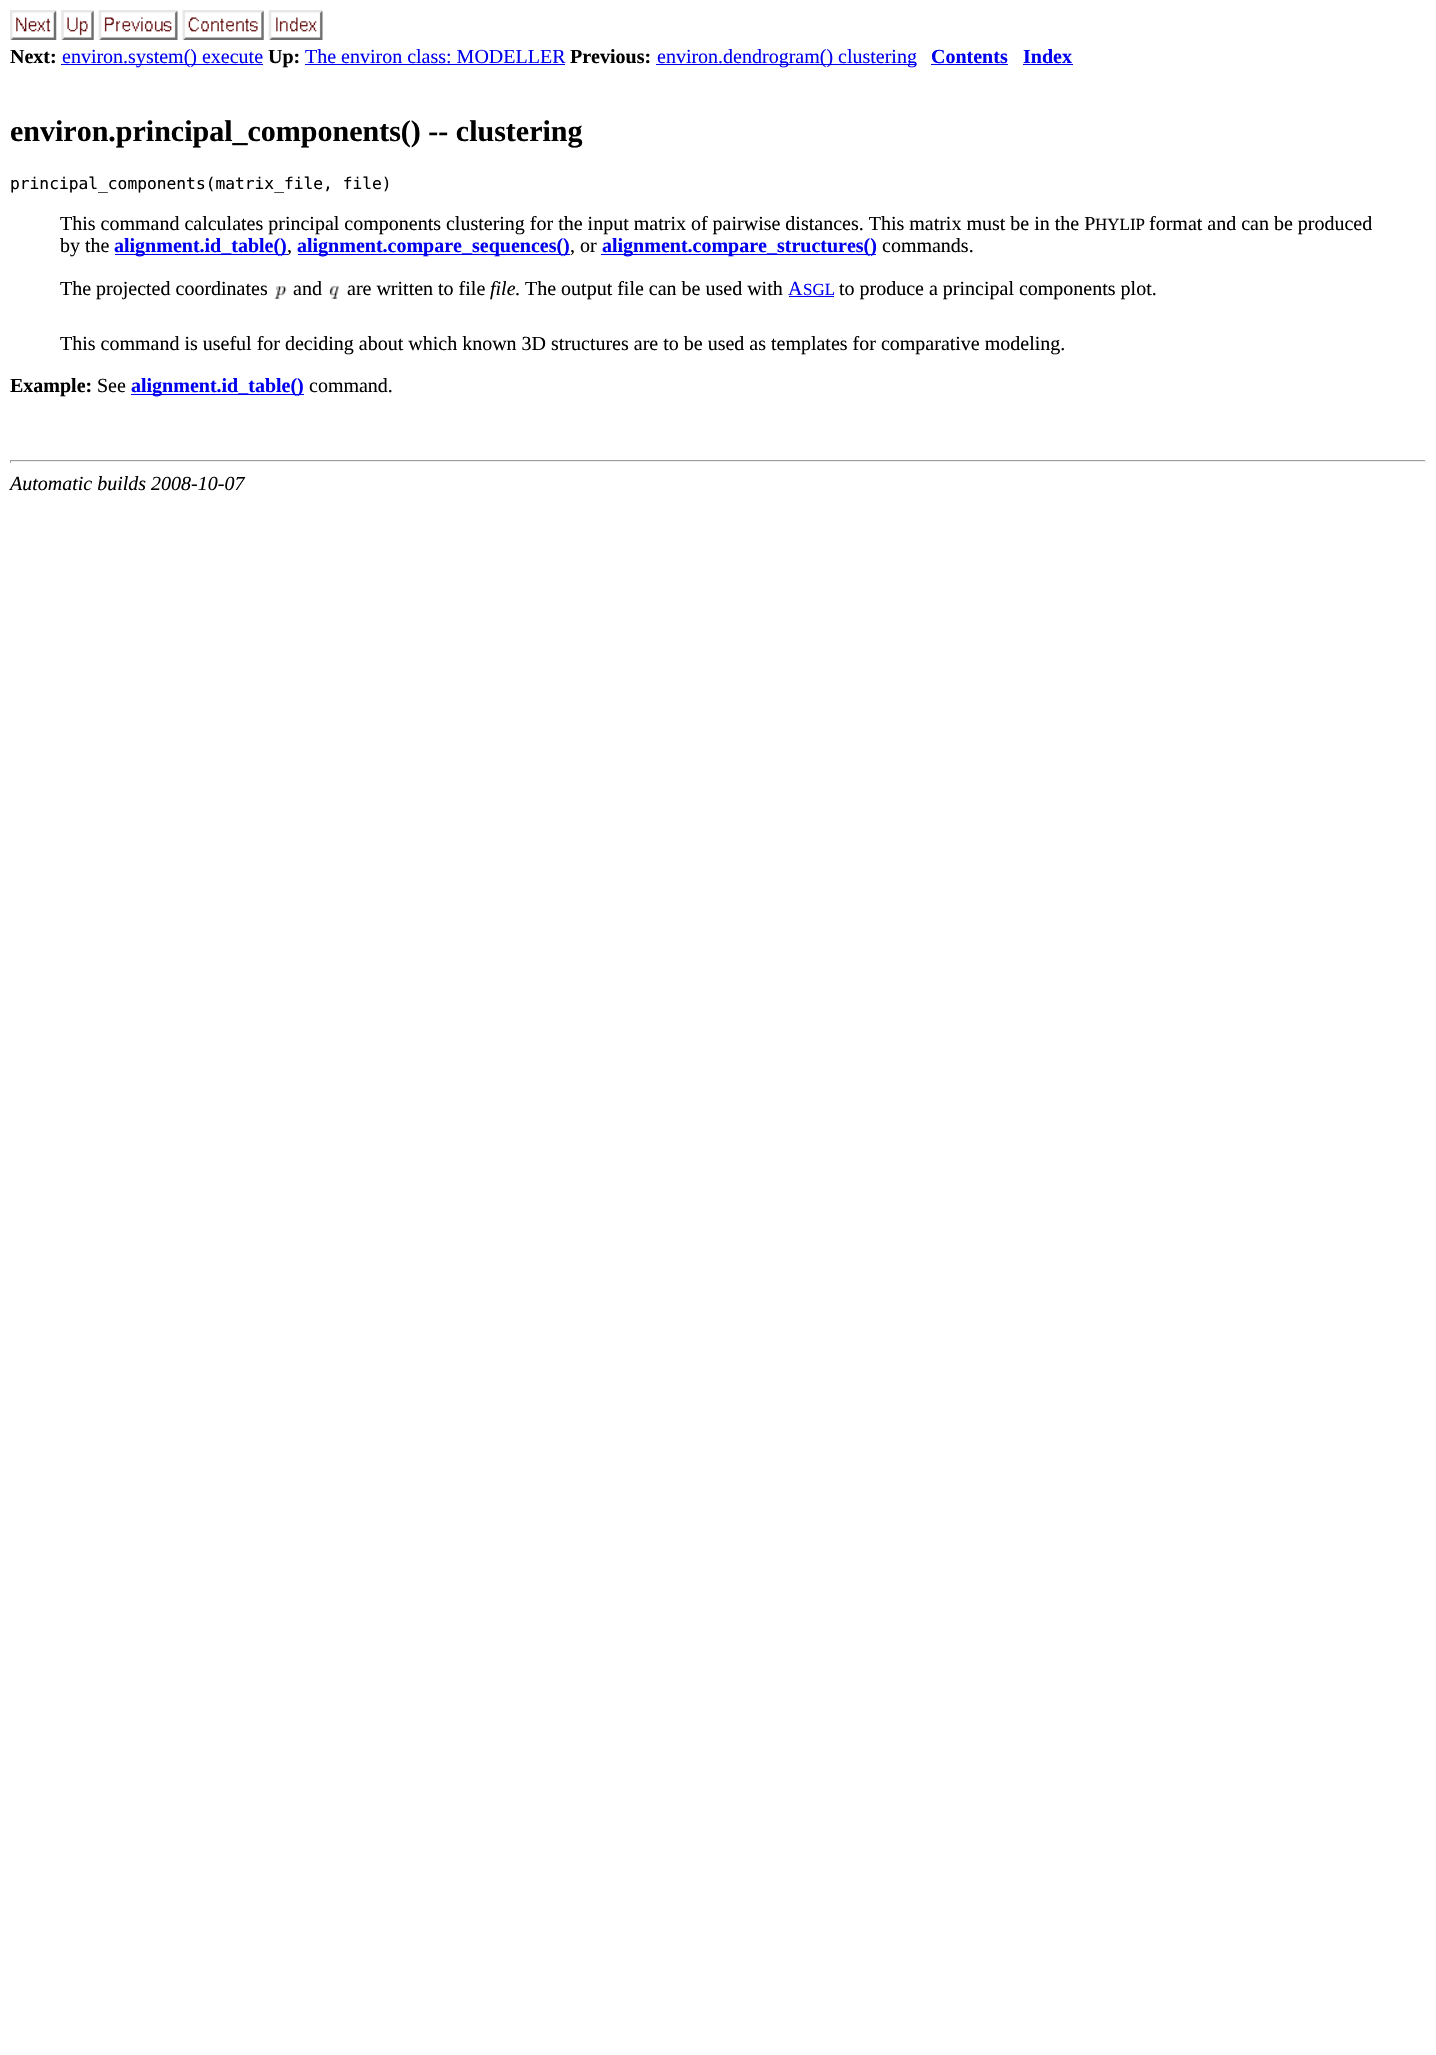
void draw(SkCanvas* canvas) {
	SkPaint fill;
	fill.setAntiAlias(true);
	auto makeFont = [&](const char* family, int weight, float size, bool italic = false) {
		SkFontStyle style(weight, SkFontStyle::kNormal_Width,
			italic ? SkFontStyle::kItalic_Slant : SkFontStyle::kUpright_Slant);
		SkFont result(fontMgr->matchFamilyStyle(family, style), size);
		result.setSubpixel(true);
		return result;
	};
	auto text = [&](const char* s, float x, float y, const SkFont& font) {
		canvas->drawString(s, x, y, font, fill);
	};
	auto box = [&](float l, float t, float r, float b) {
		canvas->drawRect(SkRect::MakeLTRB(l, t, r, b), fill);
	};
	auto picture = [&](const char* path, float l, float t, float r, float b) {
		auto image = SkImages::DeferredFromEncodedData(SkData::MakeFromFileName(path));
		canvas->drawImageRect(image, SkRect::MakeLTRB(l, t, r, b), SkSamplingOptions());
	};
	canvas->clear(0xFFFFFFFF);
	picture("image0.png", 10, 10, 57, 40);
	picture("image1.png", 61, 10, 94, 40);
	picture("image2.png", 98, 10, 178, 40);
	picture("image3.png", 182, 10, 264, 40);
	picture("image4.png", 268, 10, 323, 40);
	fill.setColor(0xFF0000EE);
	box(61, 64, 263, 65);
	box(305, 64, 565, 65);
	box(656, 64, 916, 65);
	box(931, 64, 1008, 65);
	box(1023, 64, 1073, 65);
	box(115, 254, 288, 255);
	box(298, 254, 570, 255);
	box(601, 254, 876, 255);
	picture("image5.png", 274, 286, 287, 299);
	picture("image6.png", 329, 286, 339, 299);
	box(789, 296, 834, 297);
	box(131, 394, 304, 395);
	fill.setColor(0xFF9F9F9F);
	box(10, 460, 1426, 461);
	fill.setColor(0xFFEEEEEE);
	box(1425, 460, 1426, 463);
	box(10, 461, 1426, 462);
	fill.setColor(0xFF9F9F9F);
	box(10, 460, 11, 463);
	auto font1 = makeFont("Liberation Serif", 700, 20);
	fill.setColor(0xFF000000);
	text("Next:", 10, 63, font1);
	auto font2 = makeFont("Liberation Serif", 400, 20);
	fill.setColor(0xFF0000EE);
	text("environ.system() execute", 62, 63, font2);
	fill.setColor(0xFF000000);
	text("Up:", 268, 63, font1);
	fill.setColor(0xFF0000EE);
	text("The environ class: MODELLER", 305, 63, font2);
	fill.setColor(0xFF000000);
	text("Previous:", 570, 63, font1);
	fill.setColor(0xFF0000EE);
	text("environ.dendrogram() clustering", 657, 63, font2);
	text("Contents", 931, 63, font1);
	text("Index", 1023, 63, font1);
	auto font3 = makeFont("Liberation Serif", 700, 30);
	fill.setColor(0xFF000000);
	text("environ.principal_components() -- clustering", 10, 141, font3);
	auto font4 = makeFont("DejaVu Sans Mono", 400, 16.25f);
	text("principal_components(matrix_file, file)", 10, 189, font4);
	text("This command calculates principal components clustering for the input matrix of pairwise distances. This matrix must be in the P", 60, 230, font2);
	auto font5 = makeFont("Liberation Serif", 400, 17);
	text("HYLIP", 1095, 230, font5);
	text("format and can be produced", 1149, 230, font2);
	text("by the", 60, 252, font2);
	fill.setColor(0xFF0000EE);
	text("alignment.id_table()", 114, 252, font1);
	fill.setColor(0xFF000000);
	text(",", 287, 252, font2);
	fill.setColor(0xFF0000EE);
	text("alignment.compare_sequences()", 297, 252, font1);
	fill.setColor(0xFF000000);
	text(", or", 570, 252, font2);
	fill.setColor(0xFF0000EE);
	text("alignment.compare_structures()", 602, 252, font1);
	fill.setColor(0xFF000000);
	text("commands.", 882, 252, font2);
	text("The projected coordinates", 60, 295, font2);
	text("and", 293, 295, font2);
	text("are written to file", 347, 295, font2);
	auto font6 = makeFont("Liberation Serif", 400, 20, true);
	text("file", 490, 295, font6);
	text(". The output file can be used with", 515, 295, font2);
	fill.setColor(0xFF0000EE);
	text("A", 788, 295, font2);
	text("SGL", 803, 295, font5);
	fill.setColor(0xFF000000);
	text("to produce a principal components plot.", 839, 295, font2);
	text("This command is useful for deciding about which known 3D structures are to be used as templates for comparative modeling.", 60, 350, font2);
	text("Example:", 10, 392, font1);
	text("See", 97, 392, font2);
	fill.setColor(0xFF0000EE);
	text("alignment.id_table()", 131, 392, font1);
	fill.setColor(0xFF000000);
	text("command.", 309, 392, font2);
	text("Automatic builds 2008-10-07", 10, 490, font6);
}
